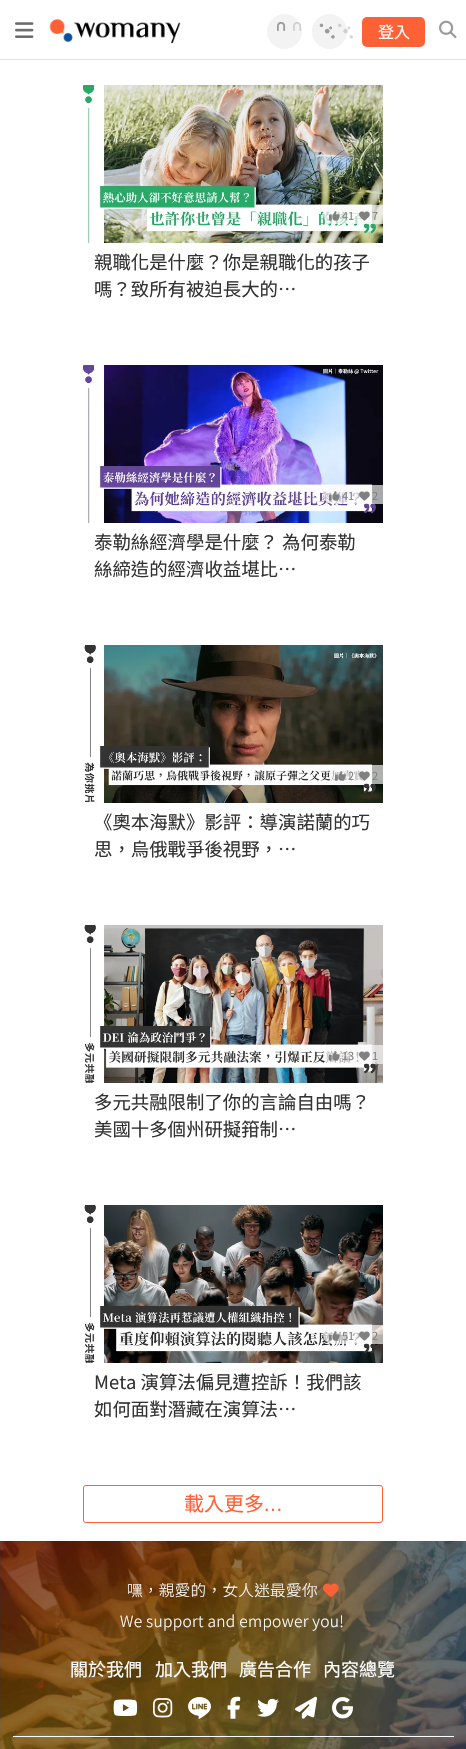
void draw(SkCanvas* canvas) {
	SkPaint fill;
	fill.setAntiAlias(true);
	auto makeFont = [&](const char* family, int weight, float size, bool italic = false) {
		SkFontStyle style(weight, SkFontStyle::kNormal_Width,
			italic ? SkFontStyle::kItalic_Slant : SkFontStyle::kUpright_Slant);
		SkFont result(fontMgr->matchFamilyStyle(family, style), size);
		result.setSubpixel(true);
		return result;
	};
	auto text = [&](const char* s, float x, float y, const SkFont& font) {
		canvas->drawString(s, x, y, font, fill);
	};
	auto spacedText = [&](const char* s, float x, float y, const SkFont& font, const SkPaint& ink, float letter, float word) {
		std::vector<SkGlyphID> glyphs(font.countText(s, strlen(s), SkTextEncoding::kUTF8));
		std::vector<float> xs(glyphs.size());
		font.textToGlyphs(s, strlen(s), SkTextEncoding::kUTF8, glyphs);
		font.getXPos(glyphs, xs, x);
		float extra = 0;
		for (size_t i = 0; i < glyphs.size(); i++) {
			xs[i] += extra;
			extra += letter + word * (glyphs[i] == font.unicharToGlyph(' '));
		}
		canvas->drawTextBlob(SkTextBlob::MakeFromPosHGlyphs(glyphs, xs, y, font), 0, 0, ink);
	};
	auto box = [&](float l, float t, float r, float b) {
		canvas->drawRect(SkRect::MakeLTRB(l, t, r, b), fill);
	};
	auto roundBox = [&](float l, float t, float r, float b, float radius) {
		canvas->drawRoundRect(SkRect::MakeLTRB(l, t, r, b), radius, radius, fill);
	};
	auto picture = [&](const char* path, float l, float t, float r, float b) {
		auto image = SkImages::DeferredFromEncodedData(SkData::MakeFromFileName(path));
		canvas->drawImageRect(image, SkRect::MakeLTRB(l, t, r, b), SkSamplingOptions());
	};
	canvas->clear(0xFFFFFFFF);
	fill.setColor(0xFFE3E3E3);
	box(0, 59, 466, 60);
	picture("image0.png", 15, 22, 34, 38);
	picture("image1.png", 49, 19, 181, 44);
	fill.setColor(0xFFF3F3F3);
	canvas->drawCircle(284.5f, 31.5f, 17, fill);
	fill.setStyle(SkPaint::kStroke_Style);
	fill.setStrokeWidth(1);
	canvas->drawCircle(284.5f, 31.5f, 17, fill);
	picture("image2.png", 277, 22, 286, 31);
	picture("image3.png", 277, 22, 302, 31);
	fill.setStyle(SkPaint::kFill_Style);
	canvas->drawCircle(329.5f, 31.5f, 17, fill);
	fill.setStyle(SkPaint::kStroke_Style);
	canvas->drawCircle(329.5f, 31.5f, 17, fill);
	picture("image4.png", 319, 23, 335, 39);
	picture("image5.png", 319, 23, 353, 39);
	fill.setStyle(SkPaint::kFill_Style);
	fill.setColor(0xFFFF6136);
	roundBox(362, 17, 425, 47, 5);
	picture("image6.png", 439, 20, 457, 39);
	picture("image7.png", 83, 85, 383, 243);
	fill.setColor(0xABF7F7F7);
	canvas->drawPath(SkPathBuilder().moveTo(332.5f, 205).lineTo(383, 205).lineTo(383, 224).lineTo(332.5f, 224).cubicTo(327.5f, 224, 323, 219.5f, 323, 214.5f).cubicTo(323, 209.5f, 327.5f, 205, 332.5f, 205).close().detach(), fill);
	picture("image8.png", 329, 211, 340, 221);
	picture("image9.png", 359, 211, 370, 221);
	picture("image10.png", 83, 365, 383, 523);
	canvas->drawPath(SkPathBuilder().moveTo(332.5f, 485).lineTo(383, 485).lineTo(383, 504).lineTo(332.5f, 504).cubicTo(327.5f, 504, 323, 499.5f, 323, 494.5f).cubicTo(323, 489.5f, 327.5f, 485, 332.5f, 485).close().detach(), fill);
	picture("image11.png", 329, 491, 340, 501);
	picture("image12.png", 359, 491, 370, 501);
	picture("image13.png", 83, 645, 383, 803);
	canvas->drawPath(SkPathBuilder().moveTo(338.5f, 765).lineTo(383, 765).lineTo(383, 784).lineTo(338.5f, 784).cubicTo(333.5f, 784, 329, 779.5f, 329, 774.5f).cubicTo(329, 769.5f, 333.5f, 765, 338.5f, 765).close().detach(), fill);
	picture("image14.png", 335, 771, 346, 781);
	picture("image15.png", 359, 771, 370, 781);
	picture("image16.png", 84, 925, 383, 1083);
	canvas->drawPath(SkPathBuilder().moveTo(332.5f, 1045).lineTo(383, 1045).lineTo(383, 1064).lineTo(332.5f, 1064).cubicTo(327.5f, 1064, 323, 1059.5f, 323, 1054.5f).cubicTo(323, 1049.5f, 327.5f, 1045, 332.5f, 1045).close().detach(), fill);
	picture("image17.png", 329, 1051, 340, 1061);
	picture("image18.png", 359, 1051, 370, 1061);
	picture("image19.png", 84, 1205, 383, 1363);
	canvas->drawPath(SkPathBuilder().moveTo(332.5f, 1325).lineTo(383, 1325).lineTo(383, 1344).lineTo(332.5f, 1344).cubicTo(327.5f, 1344, 323, 1339.5f, 323, 1334.5f).cubicTo(323, 1329.5f, 327.5f, 1325, 332.5f, 1325).close().detach(), fill);
	picture("image20.png", 329, 1331, 340, 1341);
	picture("image21.png", 359, 1331, 370, 1341);
	fill.setStyle(SkPaint::kStroke_Style);
	fill.setColor(0xFFFF6136);
	canvas->drawRoundRect(SkRect::MakeLTRB(83.5f, 1485.5f, 382.5f, 1522.5f), 2.5f, 2.5f, fill);
	picture("image22.png", 0, 1541, 466, 1749);
	picture("image23.png", 323, 1583, 339, 1597);
	picture("image24.png", 113, 1699, 138, 1716);
	picture("image25.png", 153, 1698, 173, 1718);
	picture("image26.png", 188, 1697, 211, 1719);
	picture("image27.png", 227, 1696, 241, 1719);
	picture("image28.png", 257, 1698, 279, 1717);
	picture("image29.png", 295, 1696, 317, 1719);
	picture("image30.png", 332, 1697, 353, 1719);
	fill.setStyle(SkPaint::kFill_Style);
	fill.setColor(0xFFFFFFFF);
	box(13, 1736, 454, 1737);
	auto font1 = makeFont("Noto Sans TC", 400, 16);
	text("登入", 378, 38, font1);
	auto font2 = makeFont("Noto Sans TC", 400, 11);
	fill.setColor(0xFF808080);
	text("41", 342, 220, font2);
	text("7", 372, 220, font2);
	auto font3 = makeFont("Noto Sans TC", 400, 18.4f);
	fill.setColor(0xFF333333);
	text("親職化是什麼？你是親職化的孩子", 94, 269, font3);
	text("嗎？致所有被迫長大的…", 94, 296, font3);
	fill.setColor(0xFF808080);
	text("41", 342, 500, font2);
	text("2", 372, 500, font2);
	fill.setColor(0xFF333333);
	text("泰勒絲經濟學是什麼？ 為何泰勒", 94, 549, font3);
	text("絲締造的經濟收益堪比…", 94, 576, font3);
	fill.setColor(0xFF808080);
	text("2", 348, 780, font2);
	text("2", 372, 780, font2);
	fill.setColor(0xFF333333);
	text("《奧本海默》影評：導演諾蘭的巧", 94, 829, font3);
	text("思，烏俄戰爭後視野，…", 94, 856, font3);
	fill.setColor(0xFF808080);
	text("13", 342, 1060, font2);
	text("1", 372, 1060, font2);
	fill.setColor(0xFF333333);
	text("多元共融限制了你的言論自由嗎？", 94, 1109, font3);
	text("美國十多個州研擬箝制…", 94, 1136, font3);
	fill.setColor(0xFF808080);
	text("51", 342, 1340, font2);
	text("2", 372, 1340, font2);
	fill.setColor(0xFF333333);
	text("Meta 演算法偏見遭控訴！我們該", 94, 1389, font3);
	text("如何面對潛藏在演算法…", 94, 1416, font3);
	auto font4 = makeFont("Noto Sans CJK TC", 400, 20);
	fill.setColor(0xFFFF6136);
	text("載入更多", 184, 1511, font4);
	auto font5 = makeFont("Liberation Sans", 400, 20);
	text("…", 263, 1511, font5);
	auto font6 = makeFont("Noto Sans TC", 300, 15.6f);
	fill.setColor(0xFFFFFFFF);
	spacedText("嘿，親愛的，女人迷最愛你", 127, 1596, font6, fill, 0.3f, 0);
	spacedText("We support and empower you!", 120, 1627, font6, fill, 0.3f, 0);
	auto font7 = makeFont("Noto Sans TC", 400, 18);
	text("關於我們", 70, 1676, font7);
	text("加入我們", 155, 1676, font7);
	text("廣告合作", 239, 1676, font7);
	text("內容總覽", 323, 1676, font7);
}
